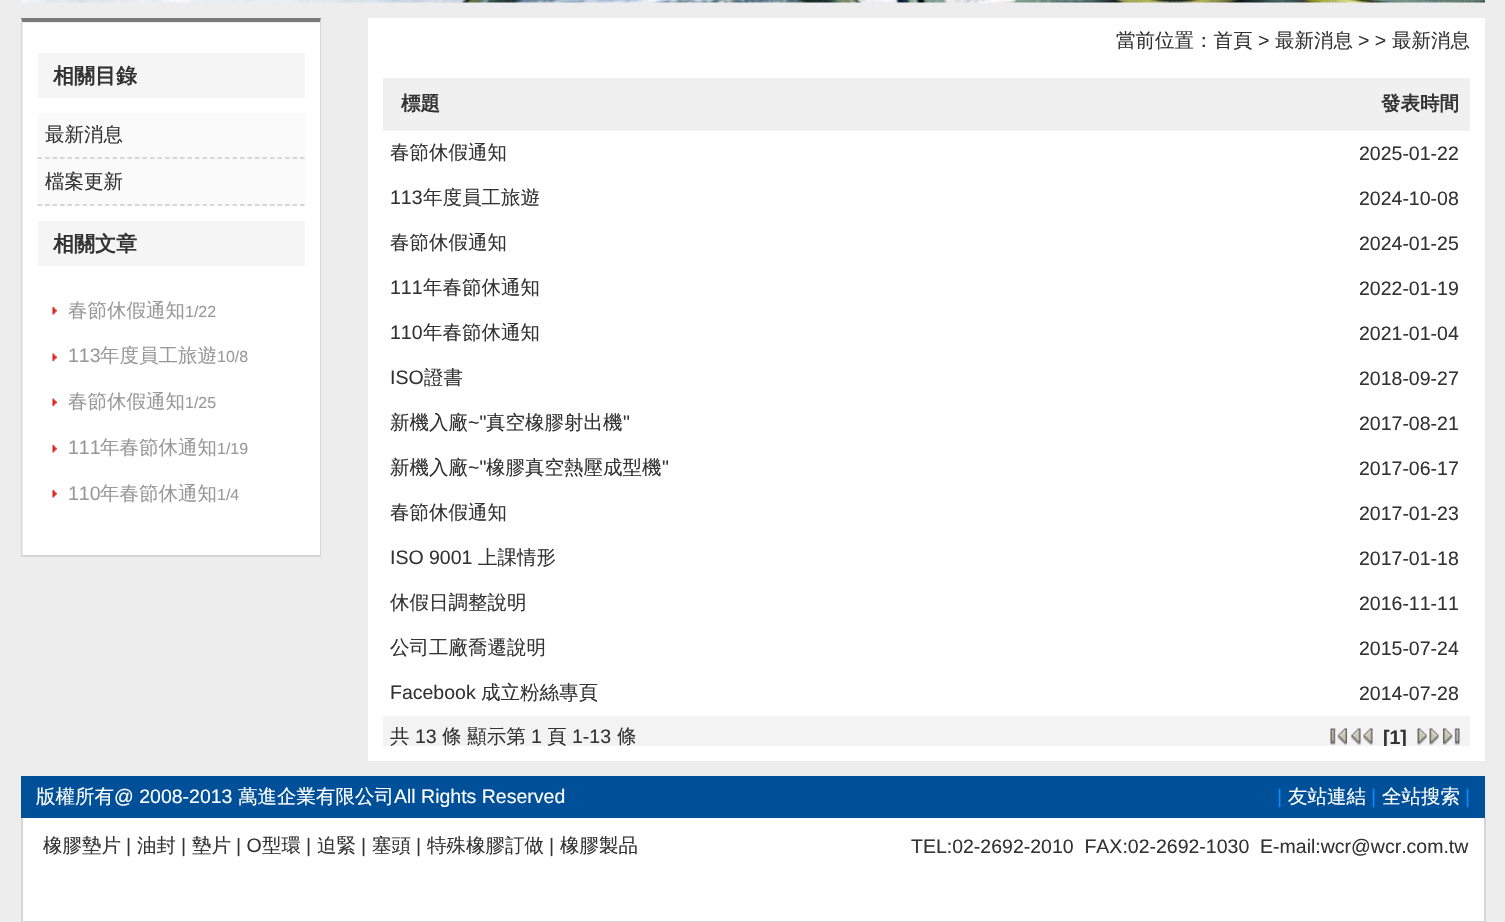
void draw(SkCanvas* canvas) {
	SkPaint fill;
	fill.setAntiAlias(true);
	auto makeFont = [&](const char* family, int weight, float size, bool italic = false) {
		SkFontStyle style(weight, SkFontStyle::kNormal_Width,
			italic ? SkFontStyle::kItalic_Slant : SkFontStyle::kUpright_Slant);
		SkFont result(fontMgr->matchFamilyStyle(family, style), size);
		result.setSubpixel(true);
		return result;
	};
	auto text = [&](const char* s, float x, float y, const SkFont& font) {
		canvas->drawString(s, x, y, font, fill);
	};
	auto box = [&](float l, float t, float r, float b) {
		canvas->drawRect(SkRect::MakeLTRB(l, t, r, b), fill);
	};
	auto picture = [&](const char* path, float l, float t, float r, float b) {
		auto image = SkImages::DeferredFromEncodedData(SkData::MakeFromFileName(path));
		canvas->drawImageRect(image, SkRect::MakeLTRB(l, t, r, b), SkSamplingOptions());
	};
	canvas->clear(0xFFEDEDED);
	picture("image0.png", 21, 0, 1485, 3);
	fill.setColor(0xFFFFFFFF);
	box(23, 23, 320, 555);
	fill.setColor(0xFF797979);
	canvas->drawPath(SkPathBuilder().moveTo(21, 18).lineTo(321, 18).lineTo(320, 22).lineTo(22, 22).close().detach(), fill);
	fill.setColor(0xFFD6D6D6);
	canvas->drawPath(SkPathBuilder().moveTo(321, 18).lineTo(321, 556).lineTo(320, 555).lineTo(320, 22).close().detach(), fill);
	box(21, 555, 321, 557);
	canvas->drawPath(SkPathBuilder().moveTo(21, 556).lineTo(21, 18).lineTo(22, 22).lineTo(22, 555).close().detach(), fill);
	fill.setColor(0xFFF5F5F5);
	box(38, 53, 305, 98);
	fill.setColor(0xFFFAFAFA);
	box(38, 113, 305, 206);
	fill.setStyle(SkPaint::kStroke_Style);
	fill.setStrokeWidth(1.5f);
	fill.setColor(0xFFCCCCCC);
	fill.setPathEffect(SkDashPathEffect::Make({{4.5f, 3}}, 0));
	canvas->drawPath(SkPathBuilder().moveTo(37.5f, 158).lineTo(304.5f, 158).detach(), fill);
	fill.setPathEffect(nullptr);
	fill.setPathEffect(SkDashPathEffect::Make({{4.5f, 3}}, 0));
	canvas->drawPath(SkPathBuilder().moveTo(37.5f, 205).lineTo(304.5f, 205).detach(), fill);
	fill.setPathEffect(nullptr);
	fill.setStyle(SkPaint::kFill_Style);
	fill.setColor(0xFFF5F5F5);
	box(38, 221, 305, 266);
	picture("image1.png", 52, 307, 57, 315);
	picture("image2.png", 52, 353, 57, 361);
	picture("image2.png", 52, 398, 57, 406);
	picture("image1.png", 52, 445, 57, 453);
	picture("image1.png", 52, 490, 57, 498);
	fill.setColor(0xFFFFFFFF);
	box(368, 18, 1485, 761);
	fill.setColor(0xFFF0F0F0);
	box(383, 78, 1470, 131);
	fill.setColor(0xFFF3F3F3);
	box(383, 716, 1470, 746);
	picture("image3.png", 1330, 728, 1347, 745);
	picture("image4.png", 1351, 728, 1373, 745);
	picture("image5.png", 1417, 728, 1439, 745);
	picture("image6.png", 1443, 728, 1460, 745);
	fill.setColor(0xFF005099);
	box(21, 776, 1485, 818);
	fill.setColor(0xFFFFFFFF);
	box(23, 818, 1484, 921);
	fill.setColor(0xFFD6D6D6);
	box(1484, 818, 1486, 922);
	box(21, 921, 1485, 922);
	box(21, 818, 23, 922);
	auto font1 = makeFont("WenQuanYi Zen Hei", 700, 21);
	fill.setColor(0xFF333333);
	text("相關目錄", 53, 83, font1);
	auto font2 = makeFont("WenQuanYi Zen Hei", 500, 19.5f);
	text("最新消息", 45, 141, font2);
	text("檔案更新", 45, 188, font2);
	text("相關文章", 53, 251, font1);
	fill.setColor(0xFF999999);
	text("春節休假通知", 68, 317, font2);
	auto font3 = makeFont("Liberation Sans", 400, 16);
	text("1/22", 185, 317, font3);
	auto font4 = makeFont("Liberation Sans", 400, 19.5f);
	text("113", 68, 362, font4);
	text("年度員工旅遊", 100, 362, font2);
	text("10/8", 217, 362, font3);
	text("春節休假通知", 68, 408, font2);
	text("1/25", 185, 408, font3);
	text("111", 68, 454, font4);
	text("年春節休通知", 100, 454, font2);
	text("1/19", 217, 454, font3);
	text("110", 68, 500, font4);
	text("年春節休通知", 100, 500, font2);
	text("1/4", 217, 500, font3);
	fill.setColor(0xFF333333);
	text("當前位置：首頁", 1116, 47, font2);
	text(">", 1258, 47, font4);
	text("最新消息", 1275, 47, font2);
	text("> >", 1358, 47, font4);
	text("最新消息", 1392, 47, font2);
	auto font5 = makeFont("WenQuanYi Zen Hei", 700, 19.5f);
	text("標題", 401, 110, font5);
	text("發表時間", 1381, 110, font5);
	text("春節休假通知", 390, 159, font2);
	text("2025-01-22", 1359, 160, font4);
	text("113", 390, 204, font4);
	text("年度員工旅遊", 423, 204, font2);
	text("2024-10-08", 1359, 205, font4);
	text("春節休假通知", 390, 249, font2);
	text("2024-01-25", 1359, 250, font4);
	text("111", 390, 294, font4);
	text("年春節休通知", 423, 294, font2);
	text("2022-01-19", 1359, 295, font4);
	text("110", 390, 339, font4);
	text("年春節休通知", 423, 339, font2);
	text("2021-01-04", 1359, 340, font4);
	text("ISO", 390, 384, font4);
	text("證書", 424, 384, font2);
	text("2018-09-27", 1359, 385, font4);
	text("新機入廠", 390, 429, font2);
	text("~\"", 468, 429, font4);
	text("真空橡膠射出機", 486, 429, font2);
	text("\"", 623, 429, font4);
	text("2017-08-21", 1359, 430, font4);
	text("新機入廠", 390, 474, font2);
	text("~\"", 468, 474, font4);
	text("橡膠真空熱壓成型機", 486, 474, font2);
	text("\"", 662, 474, font4);
	text("2017-06-17", 1359, 475, font4);
	text("春節休假通知", 390, 519, font2);
	text("2017-01-23", 1359, 520, font4);
	text("ISO 9001", 390, 564, font4);
	text("上課情形", 478, 564, font2);
	text("2017-01-18", 1359, 565, font4);
	text("休假日調整說明", 390, 609, font2);
	text("2016-11-11", 1359, 610, font4);
	text("公司工廠喬遷說明", 390, 654, font2);
	text("2015-07-24", 1359, 655, font4);
	text("Facebook", 390, 699, font4);
	text("成立粉絲專頁", 481, 699, font2);
	text("2014-07-28", 1359, 700, font4);
	text("共", 390, 743, font2);
	text("13", 415, 743, font4);
	text("條 顯示第", 442, 743, font2);
	text("1", 531, 743, font4);
	text("頁", 547, 743, font2);
	text("1-13", 572, 743, font4);
	text("條", 617, 743, font2);
	canvas->save();
	canvas->clipRect(SkRect::MakeLTRB(383, 716, 1470, 746));
	auto font6 = makeFont("Liberation Sans", 700, 19.5f);
	text("[1]", 1383, 744, font6);
	canvas->restore();
	fill.setColor(0xFFFFFFFF);
	text("版權所有", 36, 803, font2);
	text("@ 2008-2013", 114, 803, font4);
	text("萬進企業有限公司", 238, 803, font2);
	text("All Rights Reserved", 394, 803, font4);
	fill.setColor(0xFF098AFF);
	text("|", 1277, 803, font4);
	fill.setColor(0xFFFFFFFF);
	text("友站連結", 1288, 803, font2);
	fill.setColor(0xFF098AFF);
	text("|", 1371, 803, font4);
	fill.setColor(0xFFFFFFFF);
	text("全站搜索", 1382, 803, font2);
	fill.setColor(0xFF098AFF);
	text("|", 1465, 803, font4);
	fill.setColor(0xFF333333);
	text("橡膠墊片", 43, 852, font2);
	text("|", 126, 852, font4);
	text("油封", 137, 852, font2);
	text("|", 181, 852, font4);
	text("墊片", 192, 852, font2);
	text("| O", 236, 852, font4);
	text("型環", 262, 852, font2);
	text("|", 306, 852, font4);
	text("迫緊", 317, 852, font2);
	text("|", 361, 852, font4);
	text("塞頭", 372, 852, font2);
	text("|", 416, 852, font4);
	text("特殊橡膠訂做", 427, 852, font2);
	text("|", 549, 852, font4);
	text("橡膠製品", 560, 852, font2);
	text("TEL:02-2692-2010  FAX:02-2692-1030  E-mail:wcr@wcr.com.tw", 911, 853, font4);
}
